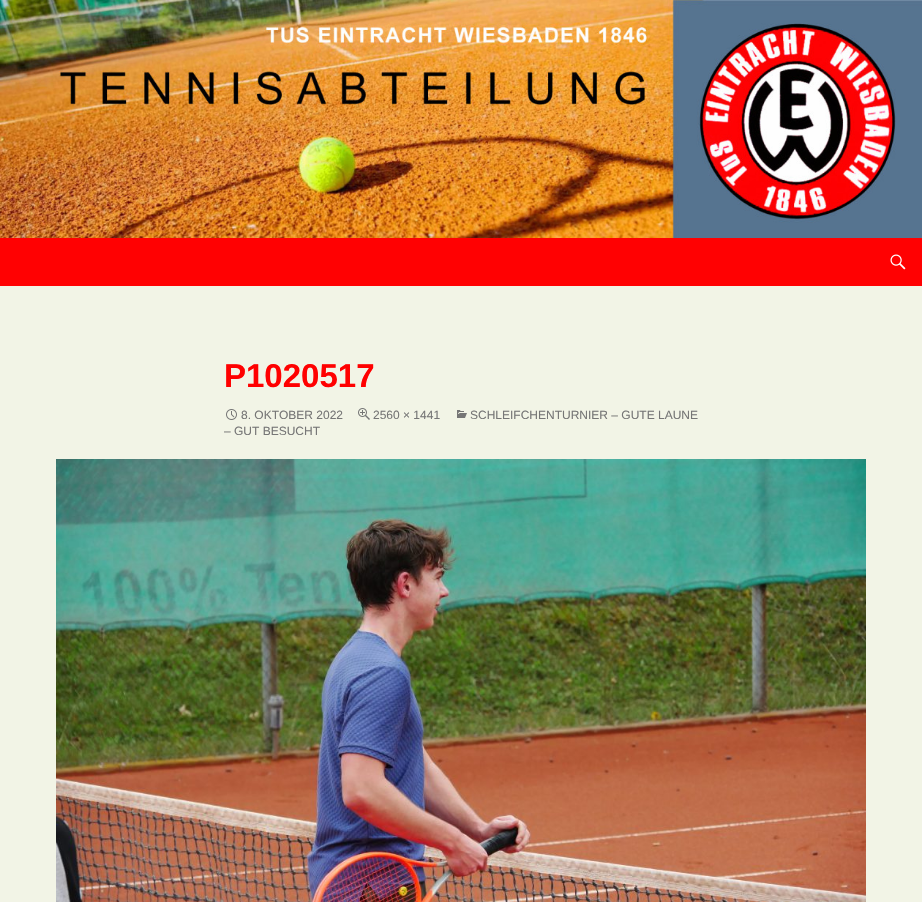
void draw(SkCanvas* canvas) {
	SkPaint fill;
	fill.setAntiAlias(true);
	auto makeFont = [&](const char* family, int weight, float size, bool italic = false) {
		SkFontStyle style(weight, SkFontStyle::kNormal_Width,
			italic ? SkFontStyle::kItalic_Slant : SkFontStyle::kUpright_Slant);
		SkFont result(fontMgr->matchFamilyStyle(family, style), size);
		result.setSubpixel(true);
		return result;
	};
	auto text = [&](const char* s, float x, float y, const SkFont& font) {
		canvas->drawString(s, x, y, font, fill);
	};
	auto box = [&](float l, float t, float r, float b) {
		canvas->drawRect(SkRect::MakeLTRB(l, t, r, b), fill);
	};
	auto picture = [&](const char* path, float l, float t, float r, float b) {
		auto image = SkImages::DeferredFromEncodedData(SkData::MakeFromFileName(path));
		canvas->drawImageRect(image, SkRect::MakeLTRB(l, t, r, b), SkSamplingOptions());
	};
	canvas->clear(0xFFF2F4E6);
	picture("image0.png", 0, 0, 922, 238);
	fill.setColor(0xFFFF0102);
	box(0, 238, 922, 286);
	picture("image1.png", 890, 254, 906, 270);
	picture("image2.png", 457, 410, 467, 418);
	picture("image3.png", 226, 409, 237, 420);
	picture("image4.png", 358, 408, 370, 420);
	picture("image5.png", 56, 459, 866, 902);
	auto font1 = makeFont("Liberation Sans", 700, 33);
	fill.setColor(0xFFFF0000);
	text("P1020517", 224, 387, font1);
	auto font2 = makeFont("Liberation Sans", 400, 12);
	fill.setColor(0xFF767676);
	text("SCHLEIFCHENTURNIER – GUTE LAUNE", 470, 419, font2);
	text("– GUT BESUCHT", 224, 435, font2);
	text("8. OKTOBER 2022", 241, 419, font2);
	text("2560 × 1441", 373, 419, font2);
}
